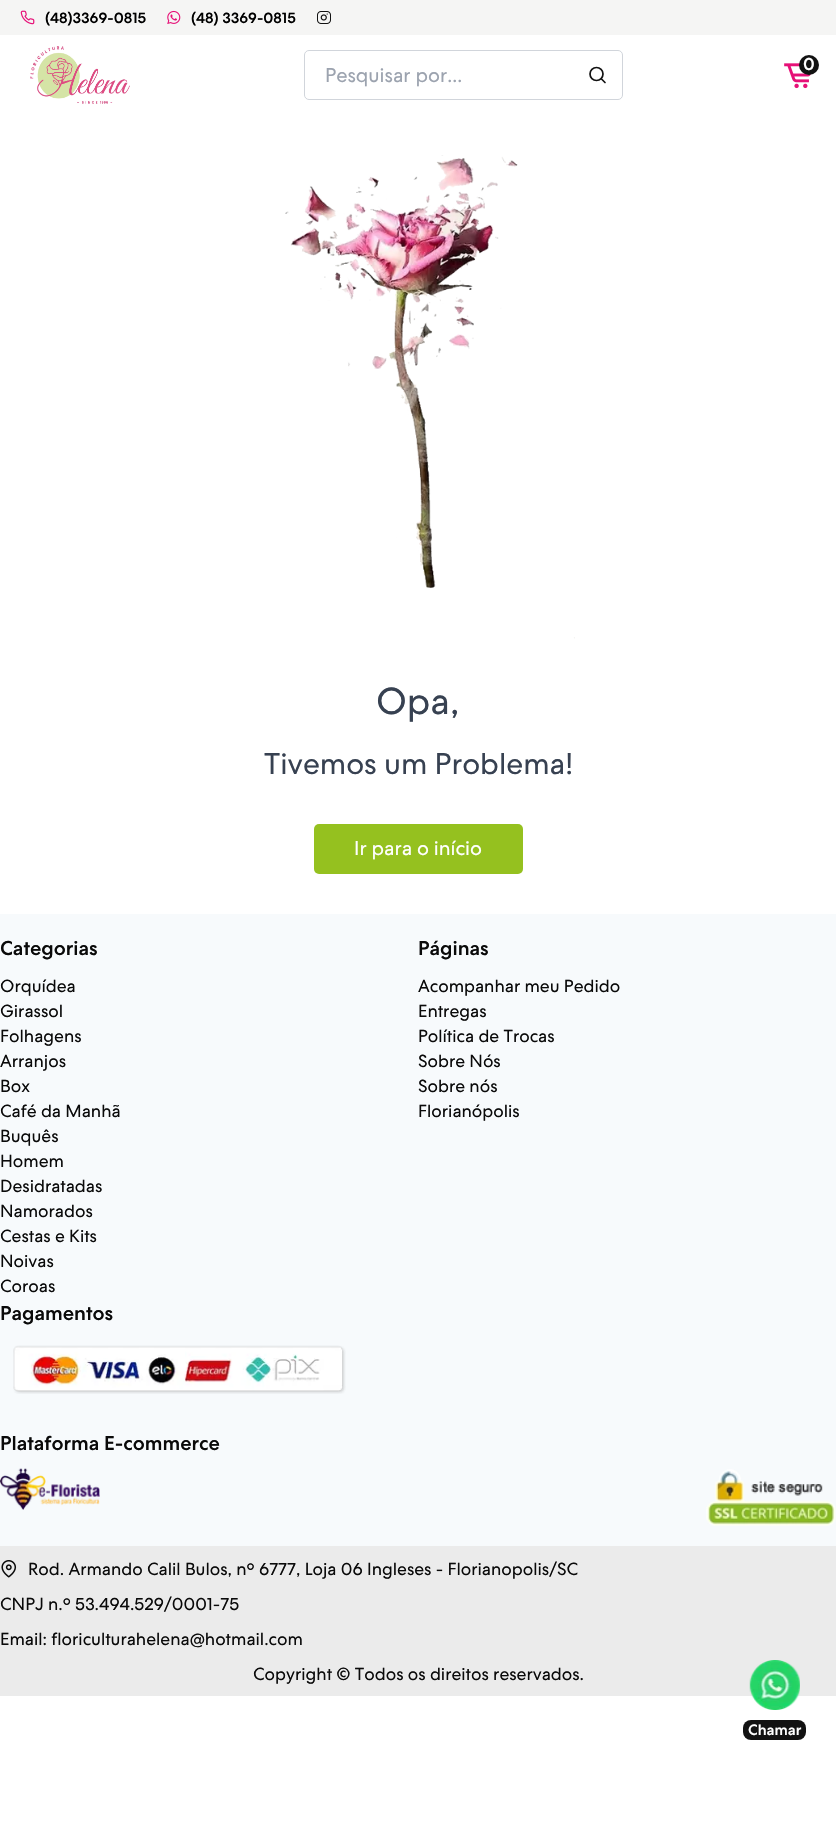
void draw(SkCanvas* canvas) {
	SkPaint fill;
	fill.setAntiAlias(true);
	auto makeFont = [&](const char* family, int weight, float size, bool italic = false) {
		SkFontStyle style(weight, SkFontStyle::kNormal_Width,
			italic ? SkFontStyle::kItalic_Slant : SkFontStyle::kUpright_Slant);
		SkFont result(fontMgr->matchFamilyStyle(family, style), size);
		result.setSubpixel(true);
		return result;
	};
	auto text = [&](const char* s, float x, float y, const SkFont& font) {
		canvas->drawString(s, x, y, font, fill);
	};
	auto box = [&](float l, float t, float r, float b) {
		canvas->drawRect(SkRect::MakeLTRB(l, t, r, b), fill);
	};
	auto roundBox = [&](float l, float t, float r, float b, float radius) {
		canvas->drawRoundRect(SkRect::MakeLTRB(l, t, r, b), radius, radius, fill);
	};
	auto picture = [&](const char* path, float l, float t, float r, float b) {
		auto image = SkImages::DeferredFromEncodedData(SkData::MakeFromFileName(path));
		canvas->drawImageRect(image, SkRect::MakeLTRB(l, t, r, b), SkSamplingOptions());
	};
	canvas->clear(0xFFFFFFFF);
	fill.setColor(0xFFF5F5F4);
	box(0, 0, 836, 35);
	picture("image0.png", 20, 10, 35, 25);
	picture("image1.png", 167, 10, 181, 24);
	picture("image2.png", 317, 11, 331, 24);
	picture("image3.png", 30, 46, 130, 104);
	picture("image4.png", 784, 63, 811, 89);
	fill.setColor(0xFF121212);
	canvas->drawCircle(809, 65, 10, fill);
	fill.setStyle(SkPaint::kStroke_Style);
	fill.setStrokeWidth(1);
	fill.setColor(0xFFD1D5DB);
	canvas->drawRoundRect(SkRect::MakeLTRB(304.5f, 50.5f, 622.5f, 99.5f), 4.5f, 4.5f, fill);
	fill.setStrokeWidth(1.7f);
	fill.setColor(0xFF121212);
	canvas->drawCircle(596.5f, 74, 6.5f, fill);
	fill.setStrokeCap(SkPaint::kRound_Cap);
	fill.setStrokeJoin(SkPaint::kRound_Join);
	canvas->drawPath(SkPathBuilder().moveTo(605, 82.5f).lineTo(601.5f, 79).detach(), fill);
	picture("image5.png", 285, 155, 575, 639);
	fill.setStyle(SkPaint::kFill_Style);
	fill.setColor(0xFF95C11F);
	roundBox(314, 824, 523, 874, 5);
	fill.setColor(0xFFF7FAFC);
	box(0, 914, 836, 1546);
	picture("image6.png", 13, 1345, 346, 1394);
	picture("image7.png", 0, 1468, 100, 1510);
	picture("image8.png", 706, 1469, 836, 1526);
	fill.setColor(0xFFEBEBEB);
	box(0, 1546, 836, 1696);
	picture("image9.png", 1, 1560, 17, 1578);
	picture("image10.png", 749, 1660, 800, 1710);
	fill.setColor(0xFF121212);
	roundBox(743, 1720, 806, 1740, 8);
	auto font1 = makeFont("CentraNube", 500, 15);
	fill.setColor(0xFF000000);
	text("(48)3369-0815", 45, 23, font1);
	text("(48) 3369-0815", 191, 23, font1);
	auto font2 = makeFont("CentraNube", 500, 17.5f);
	fill.setColor(0xFFFFFFFF);
	text("0", 803, 70, font2);
	auto font3 = makeFont("CentraNube", 400, 20);
	fill.setColor(0xFF9CA3AF);
	text("Pesquisar por...", 325, 82, font3);
	auto font4 = makeFont("CentraNube", 400, 37.5f);
	fill.setColor(0xFF374151);
	text("Opa,", 376, 714, font4);
	auto font5 = makeFont("CentraNube", 400, 30);
	text("Tivemos um Problema!", 264, 774, font5);
	fill.setColor(0xFFFFFFFF);
	text("Ir para o início", 354, 855, font3);
	auto font6 = makeFont("CentraNube", 500, 20);
	fill.setColor(0xFF0A0A0A);
	text("Categorias", 0, 955, font6);
	auto font7 = makeFont("CentraNube", 400, 17.5f);
	text("Orquídea", 0, 992, font7);
	text("Girassol", 0, 1017, font7);
	text("Folhagens", 0, 1042, font7);
	text("Arranjos", 0, 1067, font7);
	text("Box", 0, 1092, font7);
	text("Café da Manhã", 0, 1117, font7);
	text("Buquês", 0, 1142, font7);
	text("Homem", 0, 1167, font7);
	text("Desidratadas", 0, 1192, font7);
	text("Namorados", 0, 1217, font7);
	text("Cestas e Kits", 0, 1242, font7);
	text("Noivas", 0, 1267, font7);
	text("Coroas", 0, 1292, font7);
	text("Páginas", 418, 955, font6);
	text("Acompanhar meu Pedido", 418, 992, font7);
	text("Entregas", 418, 1017, font7);
	text("Política de Trocas", 418, 1042, font7);
	text("Sobre Nós", 418, 1067, font7);
	text("Sobre nós", 418, 1092, font7);
	text("Florianópolis", 418, 1117, font7);
	text("Pagamentos", 0, 1320, font6);
	text("Plataforma E-commerce", 0, 1450, font6);
	text("Rod. Armando Calil Bulos, nº 6777, Loja 06 Ingleses - Florianopolis/SC", 28, 1575, font7);
	text("CNPJ n.º 53.494.529/0001-75", 0, 1610, font7);
	text("Email: floriculturahelena@hotmail.com", 0, 1645, font7);
	text("Copyright © Todos os direitos reservados.", 253, 1680, font7);
	fill.setColor(0xFFFFFFFF);
	text("Chamar", 748, 1735, font1);
}
